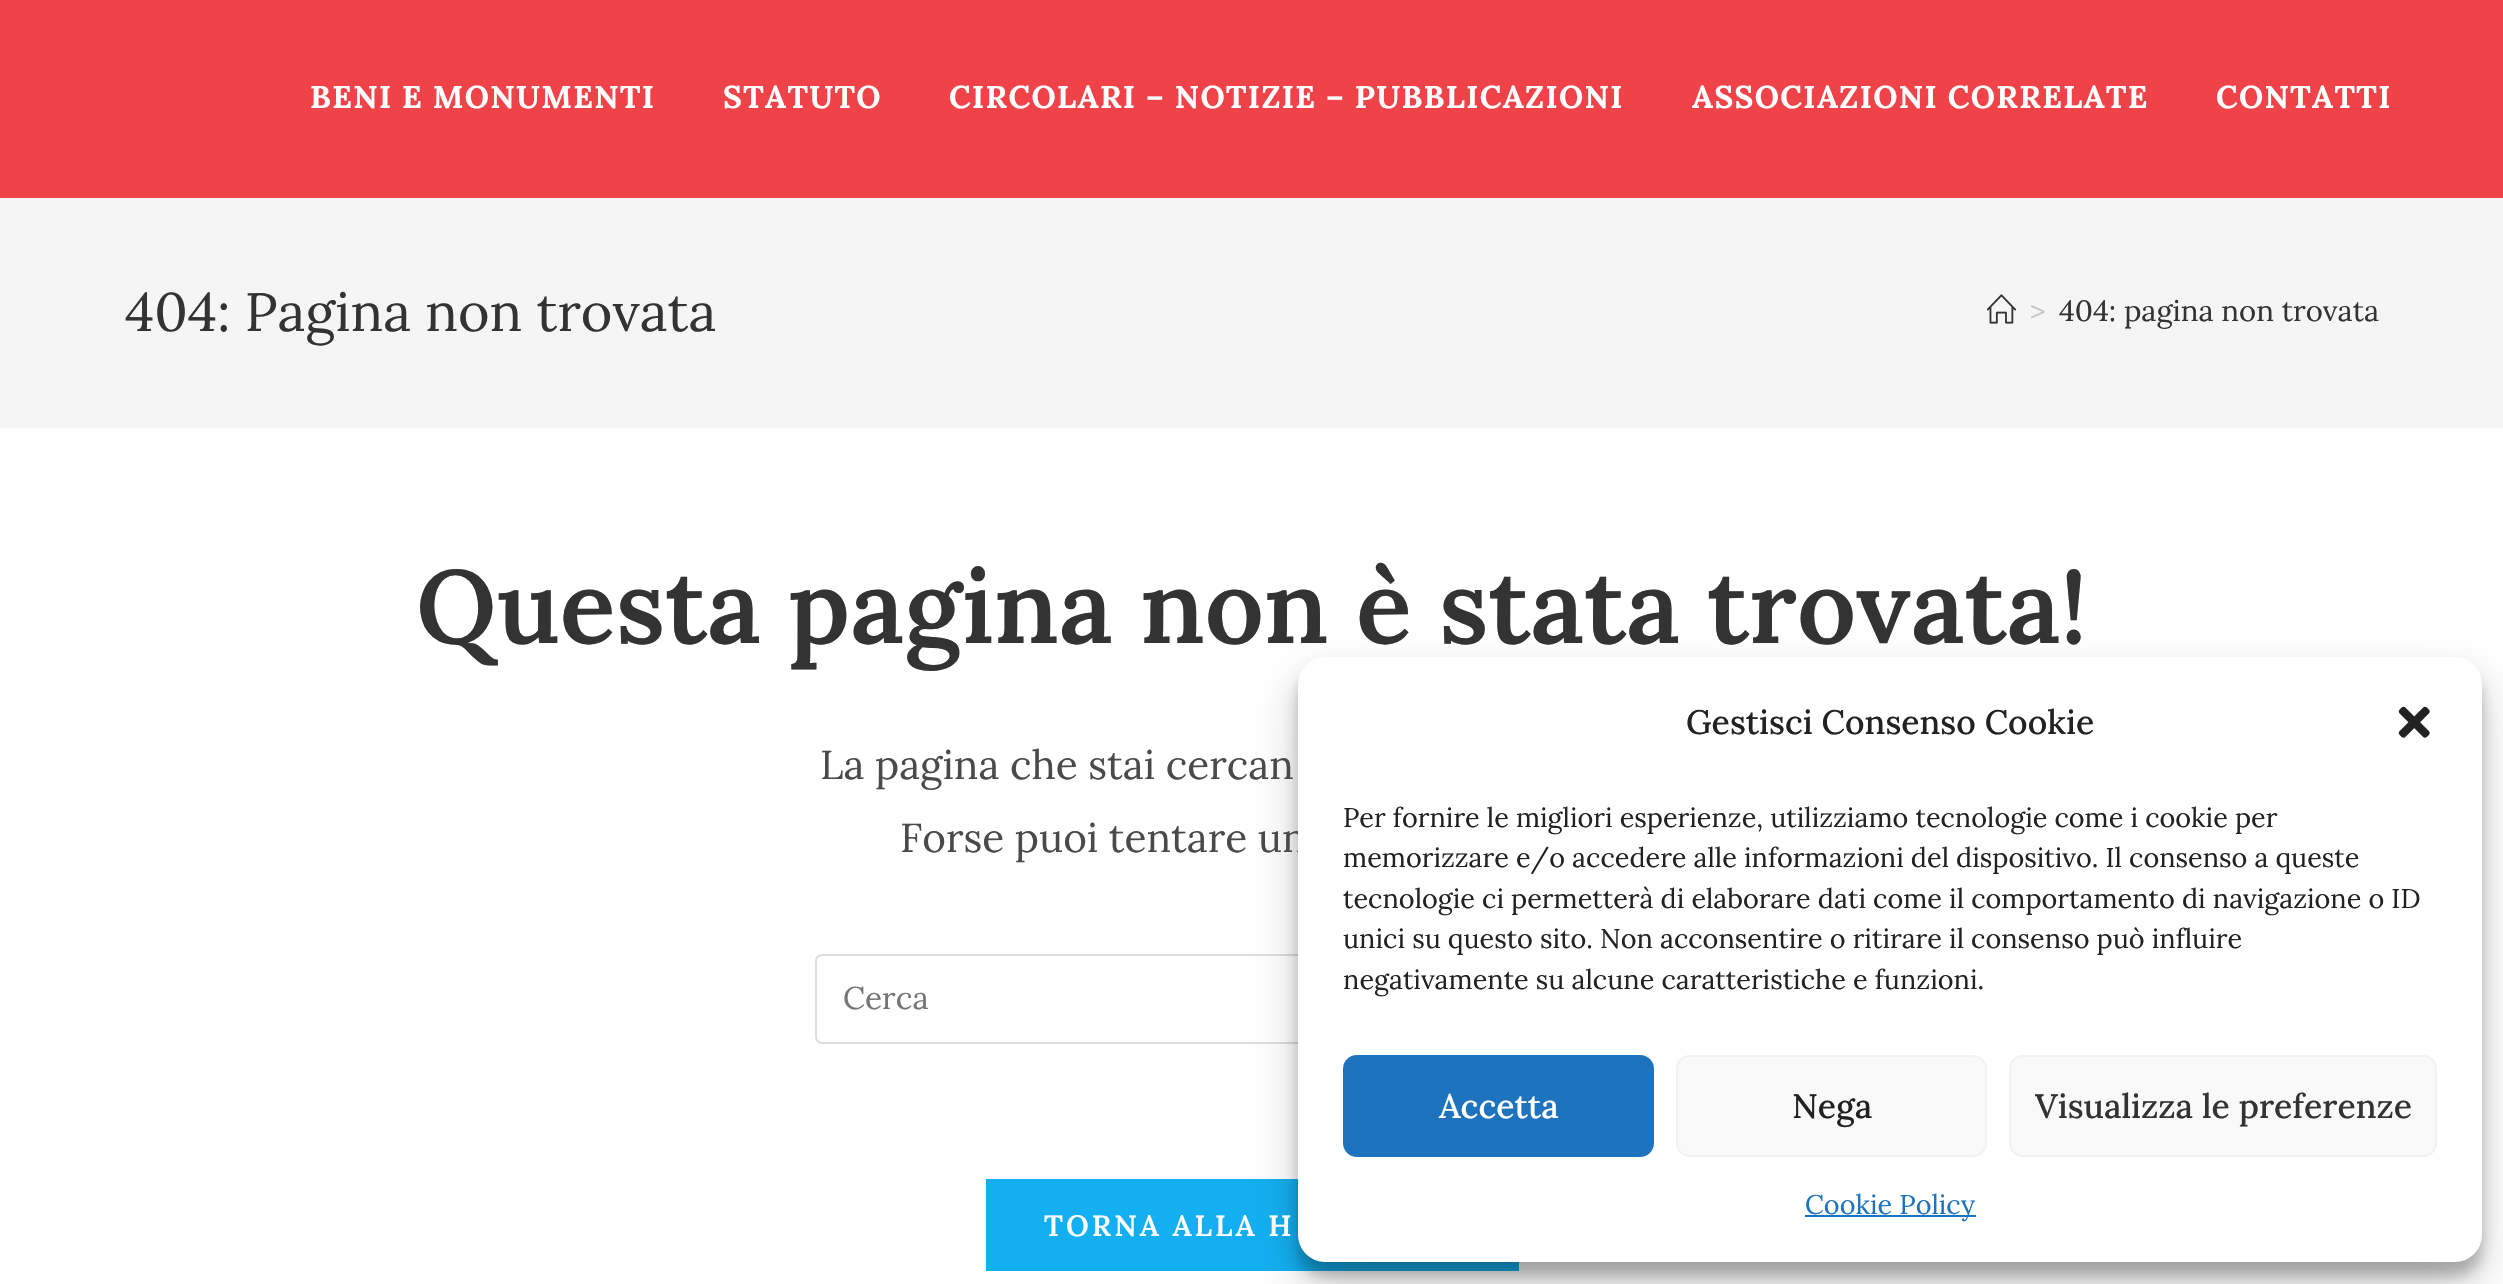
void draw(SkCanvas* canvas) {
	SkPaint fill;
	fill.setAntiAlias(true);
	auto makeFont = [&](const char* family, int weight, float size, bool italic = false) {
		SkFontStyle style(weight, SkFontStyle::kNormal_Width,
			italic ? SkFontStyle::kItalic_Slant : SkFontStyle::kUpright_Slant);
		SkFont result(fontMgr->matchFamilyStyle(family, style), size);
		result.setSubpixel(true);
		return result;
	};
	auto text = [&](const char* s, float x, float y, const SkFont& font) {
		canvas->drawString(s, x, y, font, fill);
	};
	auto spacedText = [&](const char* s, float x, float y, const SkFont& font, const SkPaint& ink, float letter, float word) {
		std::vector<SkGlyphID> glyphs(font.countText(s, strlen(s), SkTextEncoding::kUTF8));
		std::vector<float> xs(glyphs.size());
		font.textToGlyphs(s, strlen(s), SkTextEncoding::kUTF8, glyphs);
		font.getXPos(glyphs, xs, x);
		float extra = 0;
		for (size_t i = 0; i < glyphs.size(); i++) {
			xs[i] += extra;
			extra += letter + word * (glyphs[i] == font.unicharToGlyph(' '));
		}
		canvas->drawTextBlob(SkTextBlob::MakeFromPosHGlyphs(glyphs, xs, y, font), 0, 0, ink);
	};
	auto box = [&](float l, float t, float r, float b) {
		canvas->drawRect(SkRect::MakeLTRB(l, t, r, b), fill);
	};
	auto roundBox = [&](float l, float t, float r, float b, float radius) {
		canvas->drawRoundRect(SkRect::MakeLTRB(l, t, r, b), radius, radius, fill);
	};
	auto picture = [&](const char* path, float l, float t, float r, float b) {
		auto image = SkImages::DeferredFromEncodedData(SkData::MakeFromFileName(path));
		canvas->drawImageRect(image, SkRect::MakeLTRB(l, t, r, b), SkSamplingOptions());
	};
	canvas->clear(0xFFFFFFFF);
	fill.setColor(0xFFEF4349);
	box(0, 0, 2503, 198);
	fill.setColor(0xFFF5F5F5);
	box(0, 198, 2503, 428);
	picture("image0.png", 1987, 294, 2016, 324);
	fill.setStyle(SkPaint::kStroke_Style);
	fill.setStrokeWidth(2);
	fill.setColor(0xFFDDDDDD);
	canvas->drawRoundRect(SkRect::MakeLTRB(816, 955, 1691, 1043), 6, 6, fill);
	fill.setStyle(SkPaint::kFill_Style);
	fill.setColor(0xFF13AFF0);
	box(986, 1179, 1519, 1271);
	fill.setColor(0x3B000000);
	fill.setMaskFilter(SkMaskFilter::MakeBlur(kNormal_SkBlurStyle, 7));
	canvas->drawRoundRect(SkRect::MakeLTRB(1298, 671, 2482, 1276), 27, 27, fill);
	fill.setMaskFilter(nullptr);
	fill.setColor(0x30000000);
	fill.setMaskFilter(SkMaskFilter::MakeBlur(kNormal_SkBlurStyle, 22.5f));
	canvas->drawRoundRect(SkRect::MakeLTRB(1298, 680, 2482, 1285), 27, 27, fill);
	fill.setMaskFilter(nullptr);
	auto font1 = makeFont("Lora", 700, 31.5f);
	fill.setColor(0xFFFFFFFF);
	spacedText("BENI E MONUMENTI", 310, 108, font1, fill, 1.35f, 0);
	spacedText("STATUTO", 723, 108, font1, fill, 1.35f, 0);
	spacedText("CIRCOLARI – NOTIZIE – PUBBLICAZIONI", 949, 108, font1, fill, 1.35f, 0);
	spacedText("ASSOCIAZIONI CORRELATE", 1692, 108, font1, fill, 1.35f, 0);
	spacedText("CONTATTI", 2216, 108, font1, fill, 1.35f, 0);
	auto font2 = makeFont("Lora", 400, 54);
	fill.setColor(0xFF333333);
	text("404: Pagina non trovata", 125, 331, font2);
	auto font3 = makeFont("Lora", 400, 29.25f);
	fill.setColor(0xFFC6C6C6);
	text(">", 2030, 321, font3);
	fill.setColor(0xFF333333);
	text("404: pagina non trovata", 2059, 321, font3);
	auto font4 = makeFont("Lora", 600, 103.5f);
	text("Questa pagina non è stata trovata!", 416, 643, font4);
	auto font5 = makeFont("Lora", 400, 40.5f);
	fill.setColor(0xFF4A4A4A);
	text("La pagina che stai cercan", 820, 779, font5);
	text("Forse puoi tentare un", 900, 852, font5);
	auto font6 = makeFont("Lora", 400, 31.5f);
	fill.setColor(0xFF757575);
	text("Cerca", 843, 1009, font6);
	auto font7 = makeFont("Lora", 600, 29.25f);
	fill.setColor(0xFFFFFFFF);
	spacedText("TORNA ALLA H", 1044, 1236, font7, fill, 3, 0);
	roundBox(1298, 657, 2482, 1262, 27);
	auto font8 = makeFont("Lora", 500, 33.75f);
	fill.setColor(0xFF222222);
	text("Gestisci Consenso Cookie", 1686, 734, font8);
	picture("image1.png", 2398, 706, 2430, 738);
	auto font9 = makeFont("Lora", 400, 27);
	text("Per fornire le migliori esperienze, utilizziamo tecnologie come i cookie per", 1343, 827, font9);
	text("memorizzare e/o accedere alle informazioni del dispositivo. Il consenso a queste", 1343, 867, font9);
	text("tecnologie ci permetterà di elaborare dati come il comportamento di navigazione o ID", 1343, 908, font9);
	text("unici su questo sito. Non acconsentire o ritirare il consenso può influire", 1343, 948, font9);
	text("negativamente su alcune caratteristiche e funzioni.", 1343, 989, font9);
	fill.setColor(0xFF1E73BE);
	canvas->drawRoundRect(SkRect::MakeLTRB(1344, 1056, 1653, 1156), 13, 13, fill);
	fill.setStyle(SkPaint::kStroke_Style);
	canvas->drawRoundRect(SkRect::MakeLTRB(1344, 1056, 1653, 1156), 13, 13, fill);
	fill.setStyle(SkPaint::kFill_Style);
	fill.setColor(0xFFFFFFFF);
	text("Accetta", 1439, 1118, font8);
	fill.setColor(0xFFF9F9F9);
	canvas->drawRoundRect(SkRect::MakeLTRB(1677, 1056, 1986, 1156), 13, 13, fill);
	fill.setStyle(SkPaint::kStroke_Style);
	fill.setColor(0xFFF2F2F2);
	canvas->drawRoundRect(SkRect::MakeLTRB(1677, 1056, 1986, 1156), 13, 13, fill);
	fill.setStyle(SkPaint::kFill_Style);
	fill.setColor(0xFF222222);
	text("Nega", 1792, 1118, font8);
	fill.setColor(0xFFF9F9F9);
	canvas->drawRoundRect(SkRect::MakeLTRB(2010, 1056, 2436, 1156), 13, 13, fill);
	fill.setStyle(SkPaint::kStroke_Style);
	fill.setColor(0xFFF2F2F2);
	canvas->drawRoundRect(SkRect::MakeLTRB(2010, 1056, 2436, 1156), 13, 13, fill);
	fill.setStyle(SkPaint::kFill_Style);
	fill.setColor(0xFF333333);
	text("Visualizza le preferenze", 2035, 1118, font8);
	fill.setColor(0xFF1E73BE);
	box(1805, 1215, 1976, 1217);
	text("Cookie Policy", 1805, 1214, font9);
}
